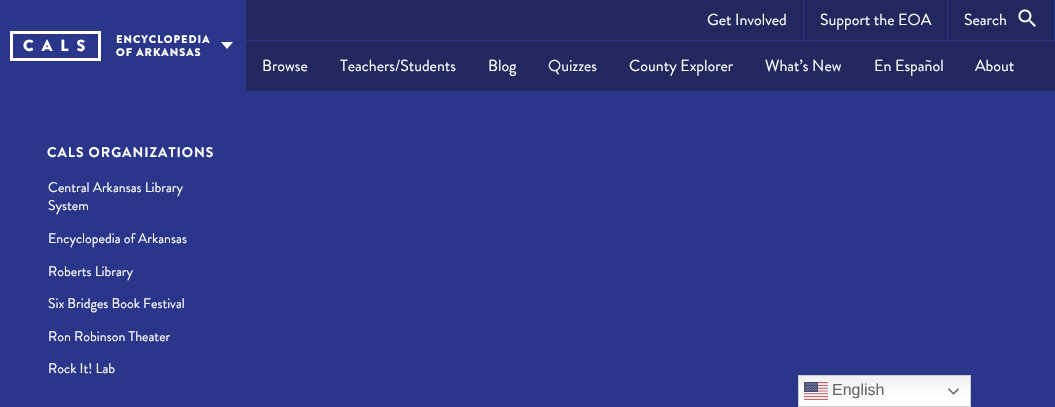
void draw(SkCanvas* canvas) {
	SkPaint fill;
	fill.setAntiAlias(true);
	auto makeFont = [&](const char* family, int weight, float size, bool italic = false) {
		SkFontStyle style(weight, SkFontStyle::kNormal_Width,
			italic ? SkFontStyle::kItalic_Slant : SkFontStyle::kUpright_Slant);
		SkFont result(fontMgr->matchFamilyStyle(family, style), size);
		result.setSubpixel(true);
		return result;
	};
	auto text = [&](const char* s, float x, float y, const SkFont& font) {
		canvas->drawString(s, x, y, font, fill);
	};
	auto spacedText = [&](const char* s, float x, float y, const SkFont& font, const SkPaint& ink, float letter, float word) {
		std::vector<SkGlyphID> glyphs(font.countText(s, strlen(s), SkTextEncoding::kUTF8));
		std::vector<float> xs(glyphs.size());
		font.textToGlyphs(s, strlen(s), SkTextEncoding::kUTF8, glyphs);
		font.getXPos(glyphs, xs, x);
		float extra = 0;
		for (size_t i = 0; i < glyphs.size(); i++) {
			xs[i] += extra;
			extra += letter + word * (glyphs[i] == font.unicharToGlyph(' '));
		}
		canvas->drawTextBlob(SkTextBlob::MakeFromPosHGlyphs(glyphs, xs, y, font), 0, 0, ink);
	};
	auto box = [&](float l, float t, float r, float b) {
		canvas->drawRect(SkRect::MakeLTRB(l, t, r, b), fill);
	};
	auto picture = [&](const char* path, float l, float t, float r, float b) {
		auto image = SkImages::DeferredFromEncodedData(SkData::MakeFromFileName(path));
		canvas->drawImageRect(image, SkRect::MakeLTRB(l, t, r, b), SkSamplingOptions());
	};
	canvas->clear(0xFF2A368A);
	fill.setColor(0xFF22275D);
	box(246, 0, 1055, 91);
	fill.setStyle(SkPaint::kStroke_Style);
	fill.setStrokeWidth(3);
	fill.setColor(0xFFFFFFFF);
	canvas->drawRect(SkRect::MakeLTRB(11.5f, 32.5f, 99.5f, 59.5f), fill);
	fill.setStyle(SkPaint::kFill_Style);
	canvas->drawPath(SkPathBuilder().moveTo(221, 42).lineTo(233, 42).lineTo(227, 49).close().detach(), fill);
	fill.setColor(0xFF2A368A);
	box(246, 40, 1055, 41);
	box(803, 0, 804, 40);
	box(1054, 0, 1055, 40);
	box(947, 0, 948, 40);
	picture("image0.png", 1018, 9, 1036, 27);
	{
		const SkColor colors[] = {0xFFEFEFEF, 0xFFFFFFFF};
		const float stops[] = {0, 0.7f};
		const SkPoint ends[] = {{885, 375}, {885, 407}};
		fill.setShader(SkGradientShader::MakeLinear(ends, colors, stops, 2, SkTileMode::kClamp));
		fill.setAlpha(255);
	}
	box(799, 376, 970, 406);
	fill.setStyle(SkPaint::kStroke_Style);
	fill.setStrokeWidth(1);
	fill.setShader(nullptr);
	fill.setColor(0xFFCCCCCC);
	canvas->drawRect(SkRect::MakeLTRB(798.5f, 375.5f, 970.5f, 406.5f), fill);
	picture("image1.png", 804, 382, 828, 400);
	picture("image2.png", 948, 388, 959, 395);
	auto font1 = makeFont("Brandon Grotesque", 900, 16);
	fill.setStyle(SkPaint::kFill_Style);
	fill.setColor(0xFFFFFFFF);
	spacedText("CALS", 23, 51, font1, fill, 8, 0);
	auto font2 = makeFont("Brandon Grotesque", 900, 11);
	spacedText("ENCYCLOPEDIA", 116, 43, font2, fill, 1, 0);
	spacedText("OF ARKANSAS", 116, 56, font2, fill, 1, 0);
	auto font3 = makeFont("Brandon Grotesque", 700, 14);
	spacedText("CALS ORGANIZATIONS", 47, 157, font3, fill, 1, 0);
	auto font4 = makeFont("Brandon Grotesque", 400, 14);
	text("Central Arkansas Library", 48, 192, font4);
	text("System", 48, 210, font4);
	text("Encyclopedia of Arkansas", 48, 243, font4);
	text("Roberts Library", 48, 276, font4);
	text("Six Bridges Book Festival", 48, 308, font4);
	text("Ron Robinson Theater", 48, 341, font4);
	text("Rock It! Lab", 48, 373, font4);
	auto font5 = makeFont("Brandon Grotesque", 400, 16);
	text("Get Involved", 707, 25, font5);
	text("Support the EOA", 820, 25, font5);
	text("Search", 964, 25, font5);
	text("Browse", 262, 71, font5);
	text("Teachers/Students", 340, 71, font5);
	text("Blog", 488, 71, font5);
	text("Quizzes", 548, 71, font5);
	text("County Explorer", 629, 71, font5);
	text("What’s New", 765, 71, font5);
	text("En Español", 874, 71, font5);
	text("About", 975, 71, font5);
	auto font6 = makeFont("Liberation Sans", 400, 16);
	fill.setColor(0xFF666666);
	text("English", 832, 395, font6);
}
